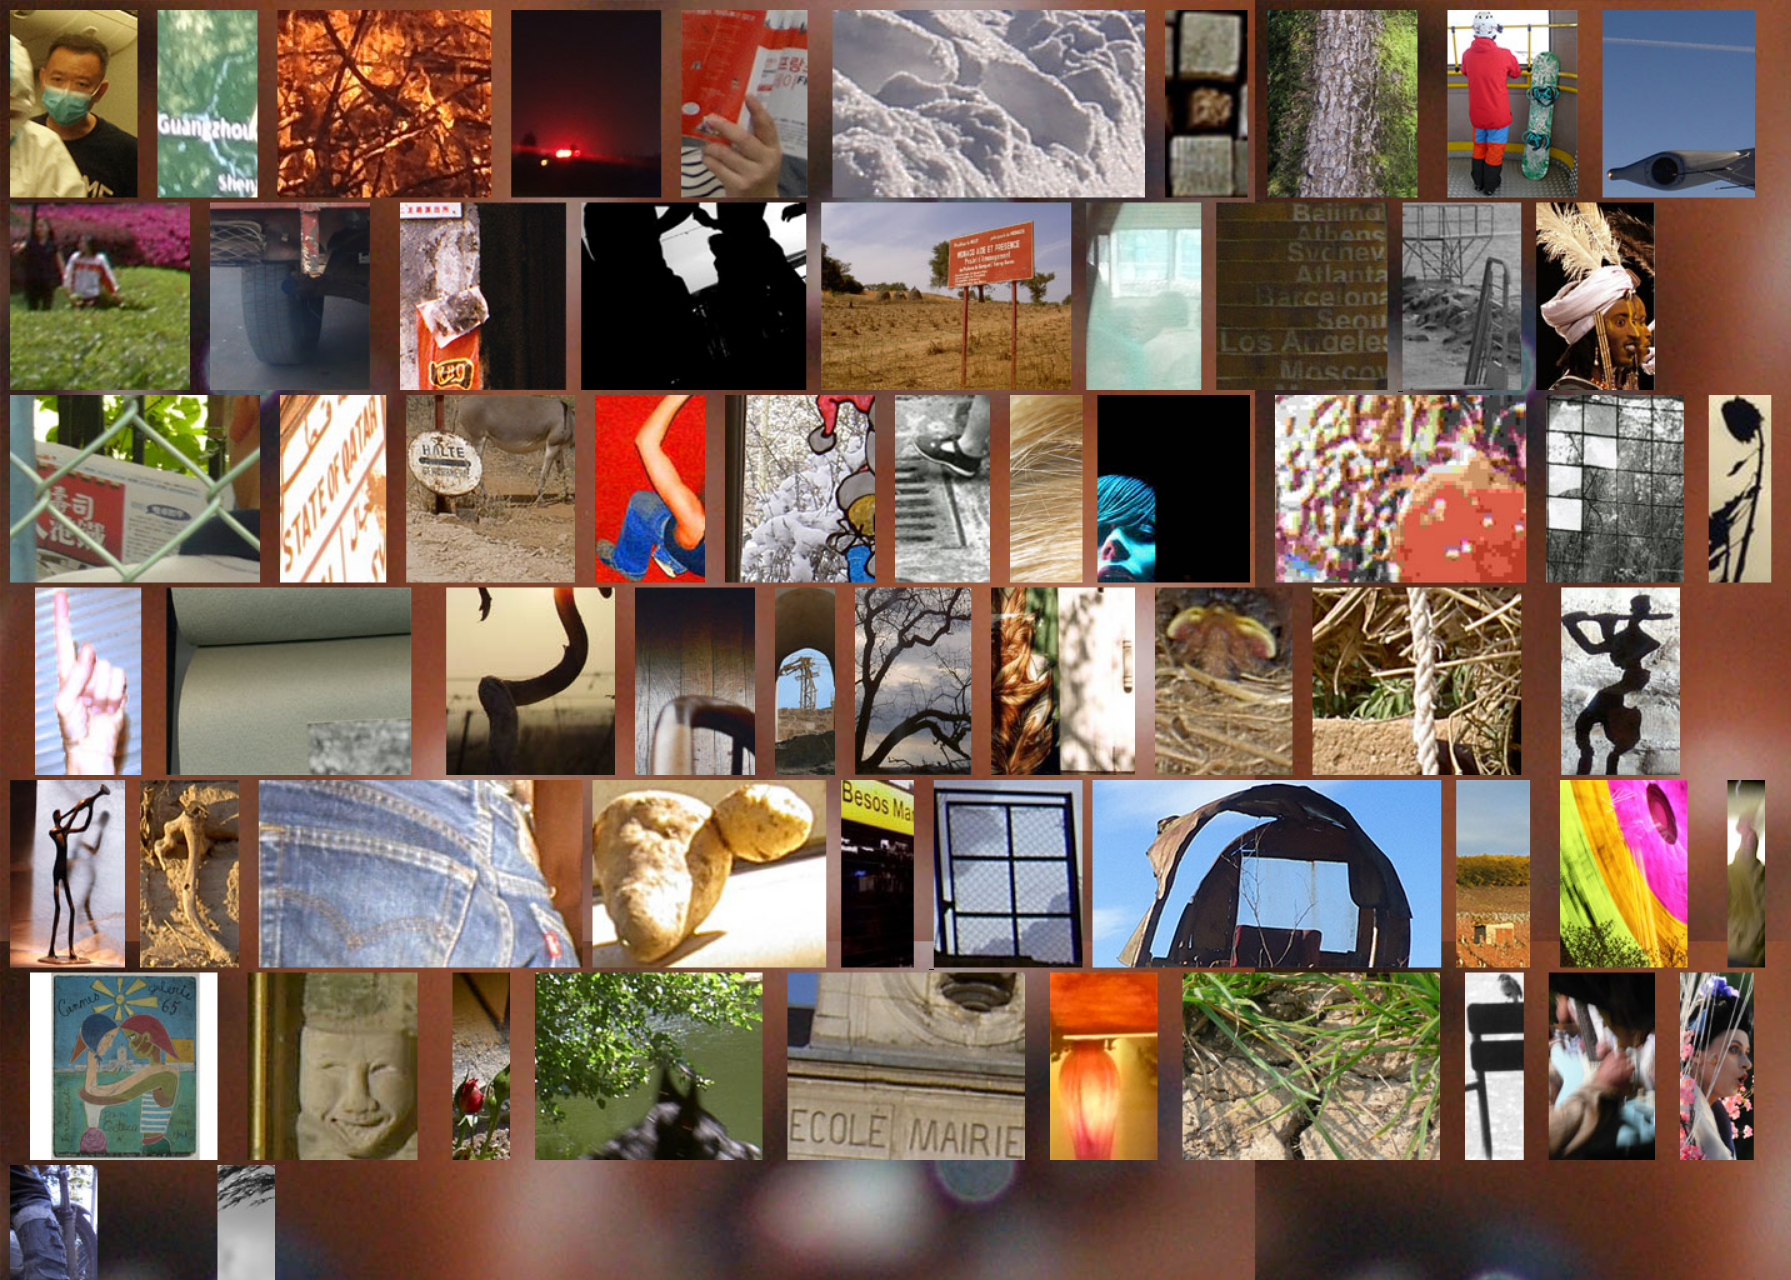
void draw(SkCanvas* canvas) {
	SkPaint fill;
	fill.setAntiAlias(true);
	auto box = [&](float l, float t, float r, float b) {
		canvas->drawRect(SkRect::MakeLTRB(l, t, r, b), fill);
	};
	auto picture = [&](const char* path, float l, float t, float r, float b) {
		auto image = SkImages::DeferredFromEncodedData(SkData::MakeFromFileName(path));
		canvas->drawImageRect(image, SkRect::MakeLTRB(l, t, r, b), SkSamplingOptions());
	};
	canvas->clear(0xFFFFFFFF);
	picture("image0.png", 0, 0, 1791, 1280);
	picture("image1.png", 10, 10, 138, 198);
	picture("image2.png", 157, 10, 258, 198);
	picture("image3.png", 277, 10, 492, 198);
	picture("image4.png", 511, 10, 662, 198);
	picture("image5.png", 681, 10, 808, 198);
	picture("image6.png", 832, 10, 1145, 198);
	picture("image7.png", 1165, 10, 1248, 198);
	picture("image8.png", 1267, 10, 1418, 198);
	picture("image9.png", 1447, 10, 1578, 198);
	picture("image10.png", 1602, 10, 1755, 198);
	picture("image11.png", 10, 202, 190, 390);
	picture("image12.png", 210, 202, 370, 390);
	picture("image13.png", 400, 202, 567, 390);
	picture("image14.png", 581, 202, 807, 390);
	picture("image15.png", 821, 202, 1072, 390);
	picture("image16.png", 1086, 202, 1202, 390);
	picture("image17.png", 1216, 202, 1388, 390);
	picture("image18.png", 1402, 202, 1522, 390);
	picture("image19.png", 1536, 202, 1655, 390);
	fill.setColor(0xFF0000EE);
	box(1398, 391, 1403, 392);
	picture("image20.png", 10, 395, 260, 583);
	picture("image21.png", 280, 395, 387, 583);
	picture("image22.png", 406, 395, 575, 583);
	picture("image23.png", 595, 395, 705, 583);
	picture("image24.png", 725, 395, 875, 583);
	picture("image25.png", 895, 395, 990, 583);
	picture("image26.png", 1010, 395, 1083, 583);
	picture("image27.png", 1097, 395, 1250, 583);
	picture("image28.png", 1275, 395, 1527, 583);
	picture("image29.png", 1546, 395, 1684, 583);
	picture("image30.png", 1708, 395, 1772, 583);
	picture("image31.png", 35, 587, 142, 775);
	picture("image32.png", 166, 587, 412, 775);
	picture("image33.png", 446, 587, 615, 775);
	picture("image34.png", 635, 587, 755, 775);
	picture("image35.png", 775, 587, 835, 775);
	picture("image36.png", 855, 587, 972, 775);
	picture("image37.png", 991, 587, 1135, 775);
	picture("image38.png", 1155, 587, 1293, 775);
	picture("image39.png", 1312, 587, 1522, 775);
	picture("image40.png", 1561, 587, 1680, 775);
	picture("image41.png", 10, 780, 125, 968);
	picture("image42.png", 140, 780, 239, 968);
	picture("image43.png", 258, 780, 583, 968);
	picture("image44.png", 592, 780, 827, 968);
	picture("image45.png", 841, 780, 914, 968);
	picture("image46.png", 933, 780, 1083, 968);
	picture("image47.png", 1092, 780, 1442, 968);
	picture("image48.png", 1456, 780, 1530, 968);
	picture("image49.png", 1560, 780, 1688, 968);
	picture("image50.png", 1727, 780, 1765, 968);
	box(929, 969, 934, 970);
	picture("image51.png", 30, 972, 218, 1160);
	picture("image52.png", 247, 972, 418, 1160);
	picture("image53.png", 452, 972, 510, 1160);
	picture("image54.png", 535, 972, 763, 1160);
	picture("image55.png", 787, 972, 1025, 1160);
	picture("image56.png", 1050, 972, 1158, 1160);
	picture("image57.png", 1182, 972, 1440, 1160);
	picture("image58.png", 1465, 972, 1524, 1160);
	picture("image59.png", 1548, 972, 1655, 1160);
	picture("image60.png", 1680, 972, 1754, 1160);
	picture("image61.png", 10, 1165, 98, 1280);
	picture("image62.png", 217, 1165, 275, 1280);
}
